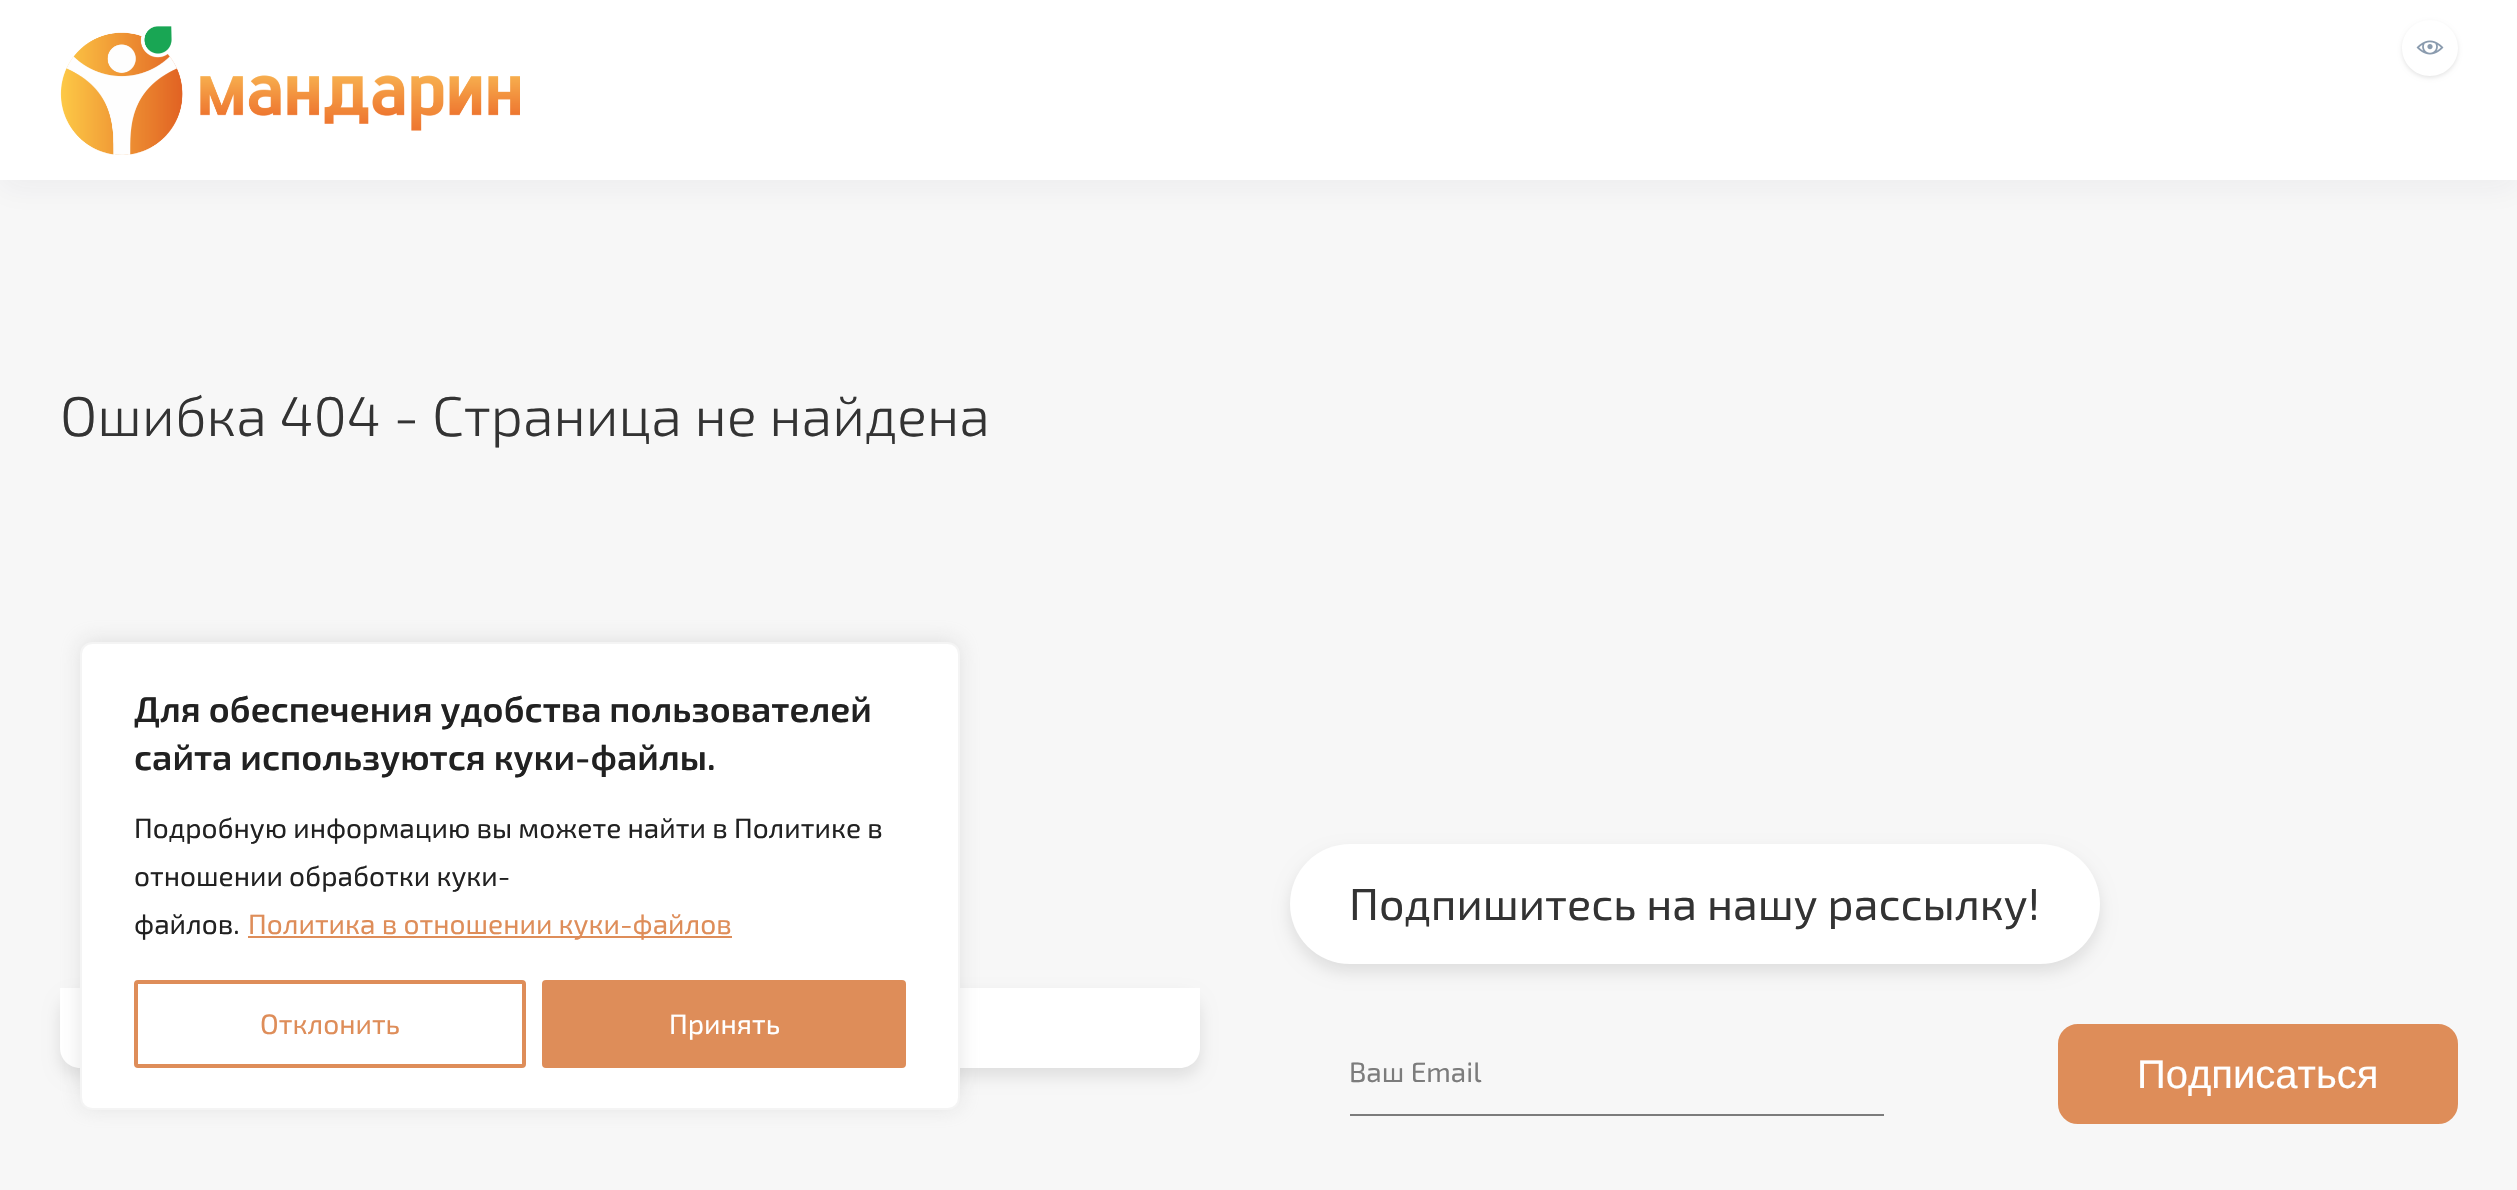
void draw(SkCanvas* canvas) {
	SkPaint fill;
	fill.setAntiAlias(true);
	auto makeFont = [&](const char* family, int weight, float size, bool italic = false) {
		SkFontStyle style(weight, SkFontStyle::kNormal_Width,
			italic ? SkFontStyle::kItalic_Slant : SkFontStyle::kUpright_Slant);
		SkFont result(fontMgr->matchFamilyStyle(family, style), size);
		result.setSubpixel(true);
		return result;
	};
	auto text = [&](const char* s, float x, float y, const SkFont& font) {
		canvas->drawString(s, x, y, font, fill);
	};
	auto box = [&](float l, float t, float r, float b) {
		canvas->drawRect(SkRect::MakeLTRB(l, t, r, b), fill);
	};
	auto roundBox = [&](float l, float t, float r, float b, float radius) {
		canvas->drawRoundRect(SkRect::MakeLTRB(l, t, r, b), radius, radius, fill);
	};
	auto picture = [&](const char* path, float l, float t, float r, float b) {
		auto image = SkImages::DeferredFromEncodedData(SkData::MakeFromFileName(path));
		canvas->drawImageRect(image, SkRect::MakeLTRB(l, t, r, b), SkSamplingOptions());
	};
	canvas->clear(0xFFF7F7F7);
	fill.setColor(0x0D202249);
	fill.setMaskFilter(SkMaskFilter::MakeBlur(kNormal_SkBlurStyle, 15));
	canvas->drawRect(SkRect::MakeLTRB(0, 8, 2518, 188), fill);
	fill.setMaskFilter(nullptr);
	fill.setColor(0xFFFFFFFF);
	box(0, 0, 2517, 180);
	picture("image0.png", 60, 26, 520, 155);
	canvas->save();
	canvas->clipPath(SkPathBuilder(SkPathFillType::kEvenOdd).moveTo(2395, 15).lineTo(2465, 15).lineTo(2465, 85).lineTo(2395, 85).close().moveTo(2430, 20).cubicTo(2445.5f, 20, 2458, 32.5f, 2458, 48).cubicTo(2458, 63.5f, 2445.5f, 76, 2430, 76).cubicTo(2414.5f, 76, 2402, 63.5f, 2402, 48).cubicTo(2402, 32.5f, 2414.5f, 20, 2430, 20).close().detach(), true);
	fill.setColor(0x1A000000);
	fill.setMaskFilter(SkMaskFilter::MakeBlur(kNormal_SkBlurStyle, 2));
	canvas->drawRoundRect(SkRect::MakeLTRB(2402, 22, 2458, 78), 28, 28, fill);
	fill.setMaskFilter(nullptr);
	canvas->restore();
	picture("image1.png", 2416, 40, 2444, 55);
	fill.setMaskFilter(SkMaskFilter::MakeBlur(kNormal_SkBlurStyle, 8));
	canvas->drawRoundRect(SkRect::MakeLTRB(60, 996, 1200, 1076), 20, 20, fill);
	fill.setMaskFilter(nullptr);
	fill.setColor(0xFFFFFFFF);
	canvas->drawPath(SkPathBuilder().moveTo(60, 988).lineTo(1200, 988).lineTo(1200, 1048).cubicTo(1200, 1059, 1191, 1068, 1180, 1068).lineTo(80, 1068).cubicTo(69, 1068, 60, 1059, 60, 1048).close().detach(), fill);
	fill.setColor(0x1A000000);
	fill.setMaskFilter(SkMaskFilter::MakeBlur(kNormal_SkBlurStyle, 8));
	canvas->drawRoundRect(SkRect::MakeLTRB(1290, 852, 2100, 972), 60, 60, fill);
	fill.setMaskFilter(nullptr);
	fill.setColor(0xFFFFFFFF);
	roundBox(1290, 844, 2100, 964, 60);
	fill.setColor(0xFF7C7C7C);
	box(1350, 1114, 1884, 1116);
	fill.setColor(0xFFDE8D59);
	canvas->drawRoundRect(SkRect::MakeLTRB(2060, 1026, 2456, 1122), 18, 18, fill);
	fill.setStyle(SkPaint::kStroke_Style);
	fill.setStrokeWidth(4);
	canvas->drawRoundRect(SkRect::MakeLTRB(2060, 1026, 2456, 1122), 18, 18, fill);
	fill.setStyle(SkPaint::kFill_Style);
	fill.setColor(0x4DACABAB);
	fill.setMaskFilter(SkMaskFilter::MakeBlur(kNormal_SkBlurStyle, 10));
	canvas->drawRoundRect(SkRect::MakeLTRB(80, 640, 960, 1108), 12, 12, fill);
	fill.setMaskFilter(nullptr);
	fill.setColor(0xFFFFFFFF);
	canvas->drawRoundRect(SkRect::MakeLTRB(81, 643, 959, 1109), 11, 11, fill);
	fill.setStyle(SkPaint::kStroke_Style);
	fill.setStrokeWidth(2);
	fill.setColor(0xFFF4F4F4);
	canvas->drawRoundRect(SkRect::MakeLTRB(81, 643, 959, 1109), 11, 11, fill);
	fill.setStyle(SkPaint::kFill_Style);
	fill.setColor(0xFFDE8D59);
	box(248, 936, 732, 938);
	fill.setStyle(SkPaint::kStroke_Style);
	fill.setStrokeWidth(4);
	canvas->drawRoundRect(SkRect::MakeLTRB(136, 982, 524, 1066), 2, 2, fill);
	fill.setStyle(SkPaint::kFill_Style);
	canvas->drawRoundRect(SkRect::MakeLTRB(544, 982, 904, 1066), 2, 2, fill);
	fill.setStyle(SkPaint::kStroke_Style);
	canvas->drawRoundRect(SkRect::MakeLTRB(544, 982, 904, 1066), 2, 2, fill);
	auto font1 = makeFont("Exo 2", 300, 56);
	fill.setStyle(SkPaint::kFill_Style);
	fill.setColor(0xFF333333);
	text("Ошибка 404 - Страница не найдена", 60, 436, font1);
	auto font2 = makeFont("Exo 2", 400, 44.75f);
	text("Подпишитесь на нашу рассылку!", 1349, 920, font2);
	auto font3 = makeFont("Exo 2", 400, 28);
	fill.setColor(0xFF7C7C7C);
	text("Ваш Email", 1349, 1082, font3);
	auto font4 = makeFont("Liberation Sans", 400, 40);
	fill.setColor(0xFFFFFFFF);
	text("Подписаться", 2137, 1088, font4);
	auto font5 = makeFont("Exo 2", 600, 36);
	fill.setColor(0xFF212121);
	text("Для обеспечения удобства пользователей", 134, 722, font5);
	text("сайта используются куки-файлы.", 134, 770, font5);
	text("Подробную информацию вы можете найти в Политике в", 134, 838, font3);
	text("отношении обработки куки-", 134, 886, font3);
	text("файлов.", 134, 934, font3);
	fill.setColor(0xFFDE8D59);
	text("Политика в отношении куки-файлов", 248, 934, font3);
	text("Отклонить", 260, 1034, font3);
	fill.setColor(0xFFFFFFFF);
	text("Принять", 669, 1034, font3);
}
